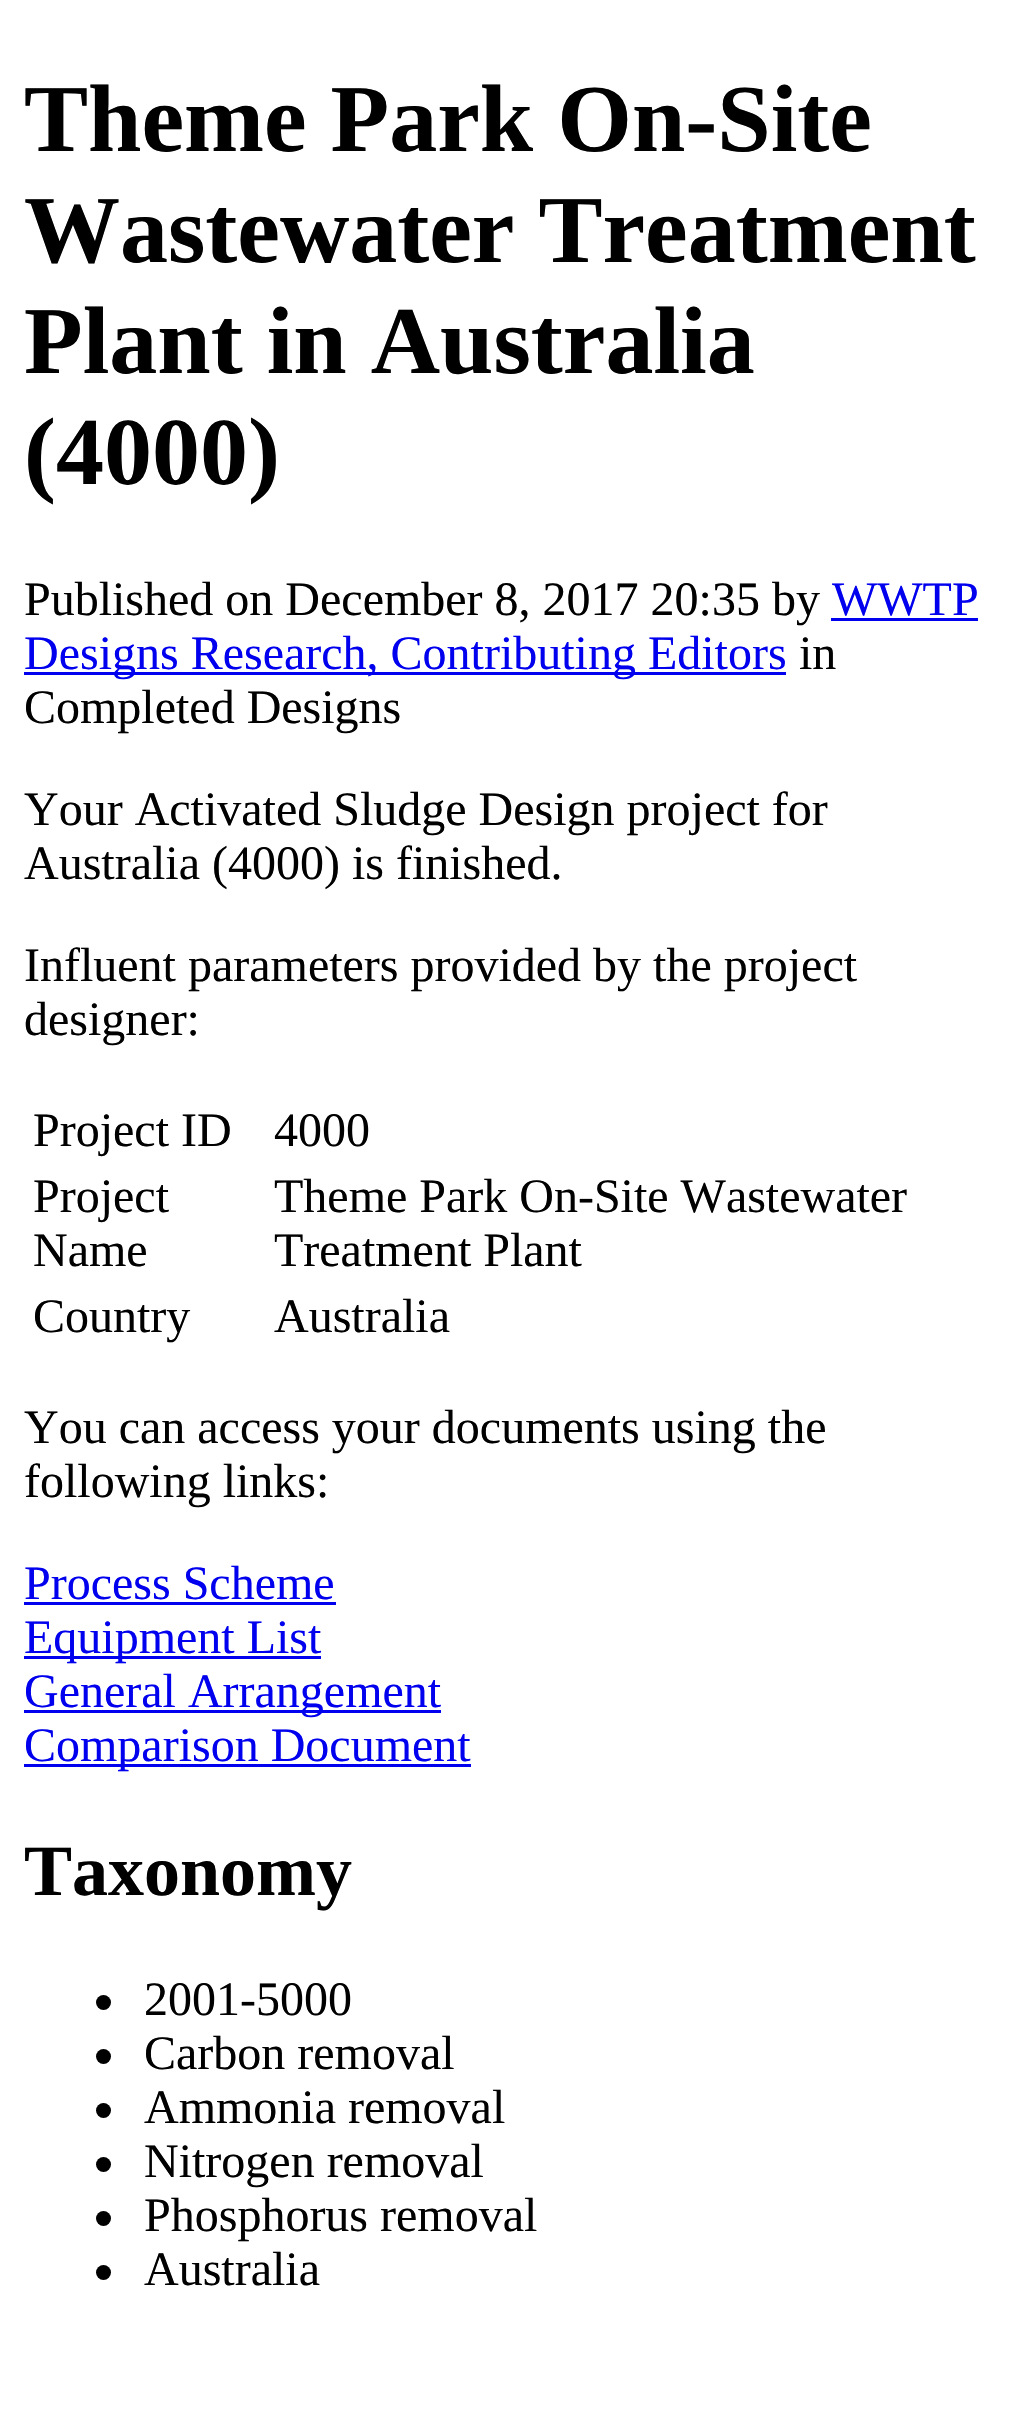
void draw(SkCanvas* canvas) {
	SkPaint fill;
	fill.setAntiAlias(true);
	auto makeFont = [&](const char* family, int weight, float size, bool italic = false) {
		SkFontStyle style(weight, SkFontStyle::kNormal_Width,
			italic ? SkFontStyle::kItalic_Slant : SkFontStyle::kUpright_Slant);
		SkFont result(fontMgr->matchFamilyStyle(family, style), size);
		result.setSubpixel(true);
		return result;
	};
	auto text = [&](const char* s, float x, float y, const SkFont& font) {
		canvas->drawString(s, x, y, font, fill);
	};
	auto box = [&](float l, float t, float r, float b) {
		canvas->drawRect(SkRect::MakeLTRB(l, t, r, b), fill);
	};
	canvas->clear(0xFFFFFFFF);
	fill.setColor(0xFF0000EE);
	box(831, 618, 978, 621);
	box(24, 672, 786, 675);
	box(24, 1602, 336, 1605);
	box(24, 1656, 321, 1659);
	box(24, 1710, 441, 1713);
	box(24, 1764, 471, 1767);
	fill.setColor(0xFF000000);
	canvas->drawCircle(103.5f, 2002.5f, 7.5f, fill);
	canvas->drawCircle(103.5f, 2056.5f, 7.5f, fill);
	canvas->drawCircle(103.5f, 2110.5f, 7.5f, fill);
	canvas->drawCircle(103.5f, 2164.5f, 7.5f, fill);
	canvas->drawCircle(103.5f, 2218.5f, 7.5f, fill);
	canvas->drawCircle(103.5f, 2272.5f, 7.5f, fill);
	auto font1 = makeFont("Liberation Serif", 700, 96);
	text("Theme Park On-Site", 24, 151, font1);
	text("Wastewater Treatment", 24, 262, font1);
	text("Plant in Australia", 24, 373, font1);
	text("(4000)", 24, 484, font1);
	auto font2 = makeFont("Liberation Serif", 400, 48);
	text("Published on December 8, 2017 20:35 by", 24, 615, font2);
	fill.setColor(0xFF0000EE);
	text("WWTP", 832, 615, font2);
	text("Designs Research, Contributing Editors", 24, 669, font2);
	fill.setColor(0xFF000000);
	text("in", 799, 669, font2);
	text("Completed Designs", 24, 723, font2);
	text("Your Activated Sludge Design project for", 24, 825, font2);
	text("Australia (4000) is finished.", 24, 879, font2);
	text("Influent parameters provided by the project", 24, 981, font2);
	text("designer:", 24, 1035, font2);
	text("Project ID", 33, 1146, font2);
	text("4000", 274, 1146, font2);
	text("Project", 33, 1212, font2);
	text("Name", 33, 1266, font2);
	text("Theme Park On-Site Wastewater", 274, 1212, font2);
	text("Treatment Plant", 274, 1266, font2);
	text("Country", 33, 1332, font2);
	text("Australia", 274, 1332, font2);
	text("You can access your documents using the", 24, 1443, font2);
	text("following links:", 24, 1497, font2);
	fill.setColor(0xFF0000EE);
	text("Process Scheme", 24, 1599, font2);
	text("Equipment List", 24, 1653, font2);
	text("General Arrangement", 24, 1707, font2);
	text("Comparison Document", 24, 1761, font2);
	auto font3 = makeFont("Liberation Serif", 700, 72);
	fill.setColor(0xFF000000);
	text("Taxonomy", 24, 1895, font3);
	text("2001-5000", 144, 2015, font2);
	text("Carbon removal", 144, 2069, font2);
	text("Ammonia removal", 144, 2123, font2);
	text("Nitrogen removal", 144, 2177, font2);
	text("Phosphorus removal", 144, 2231, font2);
	text("Australia", 144, 2285, font2);
}
